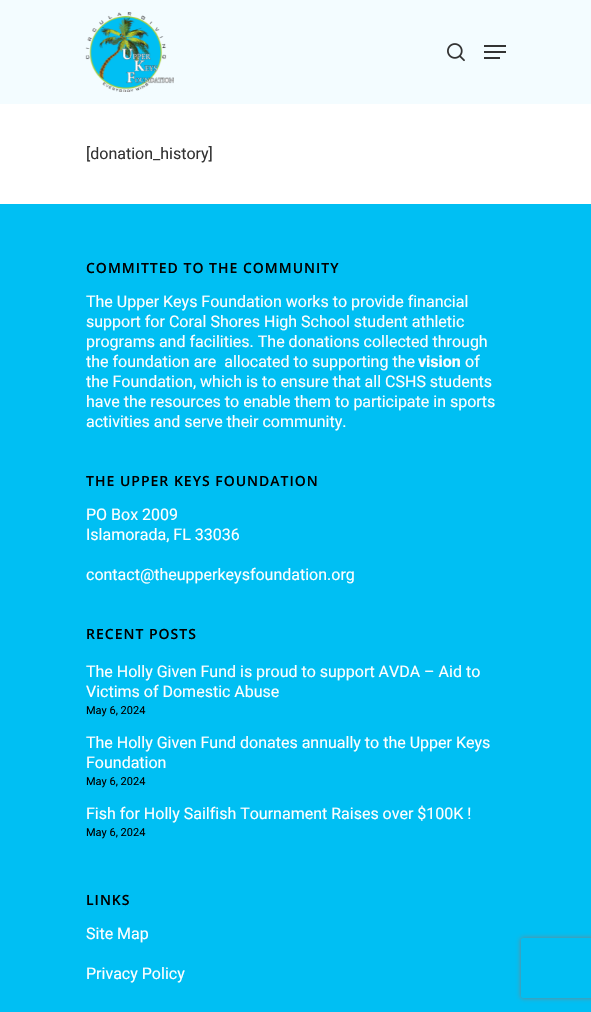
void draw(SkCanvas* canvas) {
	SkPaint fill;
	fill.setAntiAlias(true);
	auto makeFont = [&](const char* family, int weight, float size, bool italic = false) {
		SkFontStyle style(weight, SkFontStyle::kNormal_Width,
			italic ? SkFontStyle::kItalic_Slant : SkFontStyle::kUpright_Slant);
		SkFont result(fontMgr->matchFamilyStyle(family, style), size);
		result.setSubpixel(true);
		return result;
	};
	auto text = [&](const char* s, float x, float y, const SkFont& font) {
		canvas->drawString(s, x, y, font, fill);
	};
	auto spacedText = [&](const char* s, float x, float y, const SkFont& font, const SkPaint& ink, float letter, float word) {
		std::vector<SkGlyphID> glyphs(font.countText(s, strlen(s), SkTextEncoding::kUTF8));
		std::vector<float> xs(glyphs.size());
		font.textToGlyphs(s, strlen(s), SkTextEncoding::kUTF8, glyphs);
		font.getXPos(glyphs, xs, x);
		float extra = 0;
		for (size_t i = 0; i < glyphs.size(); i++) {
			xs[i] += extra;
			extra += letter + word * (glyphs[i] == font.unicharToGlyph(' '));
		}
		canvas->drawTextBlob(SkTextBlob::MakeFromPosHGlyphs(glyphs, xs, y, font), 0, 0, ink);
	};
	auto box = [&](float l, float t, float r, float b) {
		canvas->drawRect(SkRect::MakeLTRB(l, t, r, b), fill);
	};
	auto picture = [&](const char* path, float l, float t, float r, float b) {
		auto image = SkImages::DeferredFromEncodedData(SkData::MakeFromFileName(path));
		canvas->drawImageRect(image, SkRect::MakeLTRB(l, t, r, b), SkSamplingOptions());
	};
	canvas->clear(0xFFFFFFFF);
	fill.setColor(0xFFF3FCFF);
	box(0, 0, 591, 104);
	picture("image0.png", 85, 12, 174, 92);
	picture("image1.png", 447, 43, 465, 62);
	fill.setColor(0xFF333333);
	box(484, 45, 506, 47);
	box(484, 57, 500, 59);
	box(484, 51, 506, 53);
	fill.setColor(0xFF00BFF3);
	box(0, 204, 591, 1012);
	canvas->save();
	canvas->clipPath(SkPathBuilder(SkPathFillType::kEvenOdd).moveTo(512, 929).lineTo(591, 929).lineTo(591, 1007).lineTo(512, 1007).close().moveTo(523, 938).lineTo(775, 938).cubicTo(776, 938, 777, 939, 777, 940).lineTo(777, 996).cubicTo(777, 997, 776, 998, 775, 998).lineTo(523, 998).cubicTo(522, 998, 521, 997, 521, 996).lineTo(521, 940).cubicTo(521, 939, 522, 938, 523, 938).close().detach(), true);
	fill.setColor(0xFF808080);
	fill.setMaskFilter(SkMaskFilter::MakeBlur(kNormal_SkBlurStyle, 2.5f));
	canvas->drawRoundRect(SkRect::MakeLTRB(521, 938, 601, 998), 2, 2, fill);
	fill.setMaskFilter(nullptr);
	canvas->restore();
	auto font1 = makeFont("Roboto", 400, 16);
	fill.setColor(0xFF333333);
	text("[donation_history]", 86, 159, font1);
	auto font2 = makeFont("Open Sans", 600, 14);
	fill.setColor(0xFF000000);
	spacedText("COMMITTED TO THE COMMUNITY", 86, 273, font2, fill, 1, 0);
	fill.setColor(0xFFFFFFFF);
	text("The Upper Keys Foundation works to provide financial", 86, 307, font1);
	text("support for Coral Shores High School student athletic", 86, 327, font1);
	text("programs and facilities. The donations collected through", 86, 347, font1);
	text("the foundation are  allocated to supporting the", 86, 367, font1);
	auto font3 = makeFont("Roboto", 700, 16);
	text("vision", 418, 367, font3);
	text("of", 465, 367, font1);
	text("the Foundation, which is to ensure that all CSHS students", 86, 387, font1);
	text("have the resources to enable them to participate in sports", 86, 407, font1);
	text("activities and serve their community.", 86, 427, font1);
	fill.setColor(0xFF000000);
	spacedText("THE UPPER KEYS FOUNDATION", 86, 486, font2, fill, 1, 0);
	fill.setColor(0xFFFFFFFF);
	text("PO Box 2009", 86, 520, font1);
	text("Islamorada, FL 33036", 86, 540, font1);
	text("contact@theupperkeysfoundation.org", 86, 580, font1);
	fill.setColor(0xFF000000);
	spacedText("RECENT POSTS", 86, 639, font2, fill, 1, 0);
	fill.setColor(0xFFFFFFFF);
	text("The Holly Given Fund is proud to support AVDA – Aid to", 86, 677, font1);
	text("Victims of Domestic Abuse", 86, 697, font1);
	auto font4 = makeFont("Roboto", 400, 11);
	fill.setColor(0xFF000000);
	text("May 6, 2024", 86, 714, font4);
	fill.setColor(0xFFFFFFFF);
	text("The Holly Given Fund donates annually to the Upper Keys", 86, 748, font1);
	text("Foundation", 86, 768, font1);
	fill.setColor(0xFF000000);
	text("May 6, 2024", 86, 785, font4);
	fill.setColor(0xFFFFFFFF);
	text("Fish for Holly Sailfish Tournament Raises over $100K !", 86, 819, font1);
	fill.setColor(0xFF000000);
	text("May 6, 2024", 86, 836, font4);
	spacedText("LINKS", 86, 905, font2, fill, 1, 0);
	fill.setColor(0xFFFFFFFF);
	text("Site Map", 86, 939, font1);
	text("Privacy Policy", 86, 979, font1);
}
